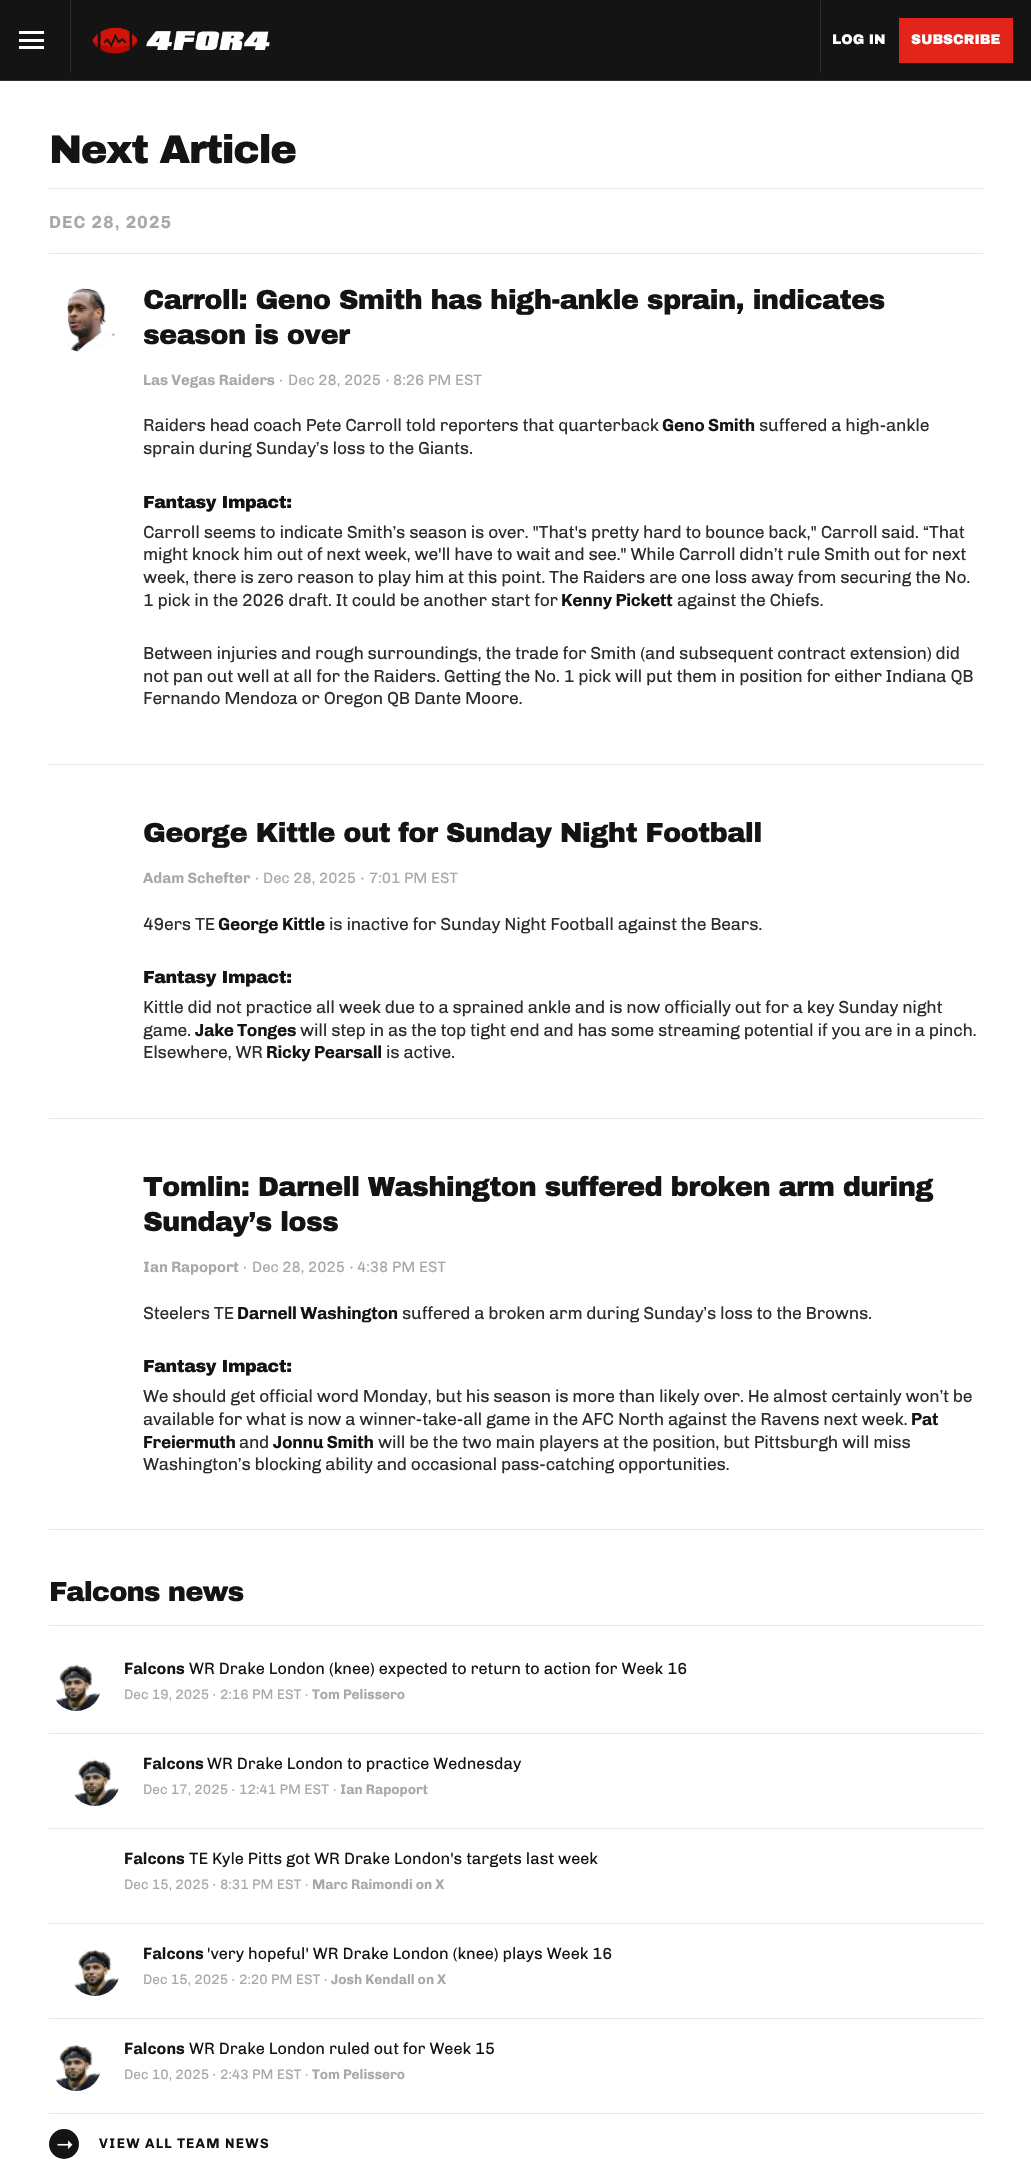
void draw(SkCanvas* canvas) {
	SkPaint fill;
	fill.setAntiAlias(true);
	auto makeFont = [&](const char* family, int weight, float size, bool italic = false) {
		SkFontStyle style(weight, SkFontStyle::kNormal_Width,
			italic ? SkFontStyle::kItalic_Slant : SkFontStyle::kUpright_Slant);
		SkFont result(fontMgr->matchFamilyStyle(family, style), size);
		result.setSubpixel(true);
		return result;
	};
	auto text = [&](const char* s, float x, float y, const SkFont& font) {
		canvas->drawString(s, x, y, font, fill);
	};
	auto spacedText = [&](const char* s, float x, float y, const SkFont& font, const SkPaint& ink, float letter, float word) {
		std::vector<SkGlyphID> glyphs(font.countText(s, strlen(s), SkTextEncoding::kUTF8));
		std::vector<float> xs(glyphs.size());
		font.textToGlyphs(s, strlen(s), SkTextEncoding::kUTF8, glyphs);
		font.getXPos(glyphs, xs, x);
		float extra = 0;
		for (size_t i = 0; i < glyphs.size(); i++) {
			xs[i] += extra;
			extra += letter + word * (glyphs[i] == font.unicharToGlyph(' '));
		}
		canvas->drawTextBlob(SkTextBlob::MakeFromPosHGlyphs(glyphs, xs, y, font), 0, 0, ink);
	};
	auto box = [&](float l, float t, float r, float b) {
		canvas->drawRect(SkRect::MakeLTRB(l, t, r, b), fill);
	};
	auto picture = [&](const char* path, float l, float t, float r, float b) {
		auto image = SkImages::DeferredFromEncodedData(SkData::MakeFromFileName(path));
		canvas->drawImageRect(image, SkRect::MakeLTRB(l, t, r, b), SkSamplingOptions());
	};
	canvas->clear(0xFFFFFFFF);
	fill.setColor(0xFF141414);
	box(0, 0, 1031, 80);
	fill.setColor(0xFF2D2D2D);
	box(0, 80, 1031, 81);
	fill.setColor(0xFFFFFFFF);
	box(19, 39, 44, 42);
	box(19, 31, 44, 34);
	box(19, 46, 44, 49);
	fill.setColor(0xFF2D2D2D);
	box(70, 0, 71, 73);
	picture("image0.png", 92, 27, 270, 54);
	box(820, 1, 821, 73);
	fill.setColor(0xFFE3241A);
	box(899, 18, 1013, 63);
	fill.setColor(0xFFE7E7E7);
	box(49, 188, 983, 189);
	box(49, 253, 983, 254);
	picture("image1.png", 67, 288, 116, 352);
	box(49, 764, 983, 765);
	box(49, 1118, 983, 1119);
	box(49, 1529, 983, 1530);
	box(49, 1625, 983, 1626);
	picture("image2.png", 55, 1664, 100, 1711);
	box(49, 1733, 983, 1734);
	picture("image3.png", 74, 1759, 119, 1806);
	box(49, 1828, 983, 1829);
	box(49, 1923, 983, 1924);
	picture("image4.png", 74, 1949, 119, 1996);
	box(49, 2018, 983, 2019);
	picture("image2.png", 55, 2044, 100, 2091);
	box(49, 2113, 983, 2114);
	fill.setColor(0xFF141414);
	canvas->drawCircle(64, 2144, 15, fill);
	picture("image5.png", 57, 2140, 73, 2149);
	auto font1 = makeFont("archivo", 900, 13.75f);
	fill.setColor(0xFFFFFFFF);
	text("LOG IN", 832, 44, font1);
	text("SUBSCRIBE", 911, 44, font1);
	auto font2 = makeFont("archivo", 900, 40);
	fill.setColor(0xFF141414);
	spacedText("Next Article", 49, 163, font2, fill, -1.5f, 0);
	auto font3 = makeFont("chivo", 700, 17.5f);
	fill.setColor(0xFFA6A8AA);
	spacedText("DEC 28, 2025", 49, 228, font3, fill, 1, 0);
	auto font4 = makeFont("archivo", 900, 27.5f);
	fill.setColor(0xFF141414);
	spacedText("Carroll: Geno Smith has high-ankle sprain, indicates", 143, 309, font4, fill, -0.75f, 0);
	spacedText("season is over", 143, 344, font4, fill, -0.75f, 0);
	auto font5 = makeFont("chivo", 700, 15);
	fill.setColor(0xFFA6A8AA);
	text("Las Vegas Raiders", 143, 385, font5);
	auto font6 = makeFont("chivo", 400, 15);
	text("·", 279, 385, font6);
	text("Dec 28, 2025", 288, 385, font6);
	auto font7 = makeFont("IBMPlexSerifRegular", 400, 15);
	text("·", 385, 385, font7);
	text("8:26 PM EST", 393, 385, font6);
	auto font8 = makeFont("chivo", 400, 17.5f);
	fill.setColor(0xFF2D2D2D);
	spacedText("Raiders head coach Pete Carroll told reporters that quarterback", 143, 431, font8, fill, -0.25f, 0);
	fill.setColor(0xFF141414);
	spacedText("Geno Smith", 662, 431, font3, fill, -0.25f, 0);
	fill.setColor(0xFF2D2D2D);
	spacedText("suffered a high-ankle", 759, 431, font8, fill, -0.25f, 0);
	spacedText("sprain during Sunday’s loss to the Giants.", 143, 454, font8, fill, -0.25f, 0);
	auto font9 = makeFont("archivo", 900, 17.5f);
	fill.setColor(0xFF141414);
	spacedText("Fantasy Impact:", 143, 508, font9, fill, -0.4f, 0);
	fill.setColor(0xFF2D2D2D);
	spacedText("Carroll seems to indicate Smith’s season is over. \"That's pretty hard to bounce back,\" Carroll said. “That", 143, 538, font8, fill, -0.25f, 0);
	spacedText("might knock him out of next week, we'll have to wait and see.\" While Carroll didn’t rule Smith out for next", 143, 560, font8, fill, -0.25f, 0);
	spacedText("week, there is zero reason to play him at this point. The Raiders are one loss away from securing the No.", 143, 583, font8, fill, -0.25f, 0);
	spacedText("1 pick in the 2026 draft. It could be another start for", 143, 606, font8, fill, -0.25f, 0);
	fill.setColor(0xFF141414);
	spacedText("Kenny Pickett", 561, 606, font3, fill, -0.25f, 0);
	fill.setColor(0xFF2D2D2D);
	spacedText("against the Chiefs.", 677, 606, font8, fill, -0.25f, 0);
	spacedText("Between injuries and rough surroundings, the trade for Smith (and subsequent contract extension) did", 143, 659, font8, fill, -0.25f, 0);
	spacedText("not pan out well at all for the Raiders. Getting the No. 1 pick will put them in position for either Indiana QB", 143, 682, font8, fill, -0.25f, 0);
	spacedText("Fernando Mendoza or Oregon QB Dante Moore.", 143, 704, font8, fill, -0.25f, 0);
	fill.setColor(0xFF141414);
	spacedText("George Kittle out for Sunday Night Football", 143, 842, font4, fill, -0.75f, 0);
	fill.setColor(0xFFA6A8AA);
	text("Adam Schefter", 143, 883, font5);
	text("·", 255, 883, font6);
	text("Dec 28, 2025", 263, 883, font6);
	text("·", 360, 883, font7);
	text("7:01 PM EST", 369, 883, font6);
	fill.setColor(0xFF2D2D2D);
	spacedText("49ers TE", 143, 930, font8, fill, -0.25f, 0);
	fill.setColor(0xFF141414);
	spacedText("George Kittle", 218, 930, font3, fill, -0.25f, 0);
	fill.setColor(0xFF2D2D2D);
	spacedText("is inactive for Sunday Night Football against the Bears.", 329, 930, font8, fill, -0.25f, 0);
	fill.setColor(0xFF141414);
	spacedText("Fantasy Impact:", 143, 983, font9, fill, -0.4f, 0);
	fill.setColor(0xFF2D2D2D);
	spacedText("Kittle did not practice all week due to a sprained ankle and is now officially out for a key Sunday night", 143, 1013, font8, fill, -0.25f, 0);
	spacedText("game.", 143, 1036, font8, fill, -0.25f, 0);
	fill.setColor(0xFF141414);
	spacedText("Jake Tonges", 195, 1036, font3, fill, -0.25f, 0);
	fill.setColor(0xFF2D2D2D);
	spacedText("will step in as the top tight end and has some streaming potential if you are in a pinch.", 300, 1036, font8, fill, -0.25f, 0);
	spacedText("Elsewhere, WR", 143, 1058, font8, fill, -0.25f, 0);
	fill.setColor(0xFF141414);
	spacedText("Ricky Pearsall", 266, 1058, font3, fill, -0.25f, 0);
	fill.setColor(0xFF2D2D2D);
	spacedText("is active.", 386, 1058, font8, fill, -0.25f, 0);
	fill.setColor(0xFF141414);
	spacedText("Tomlin: Darnell Washington suffered broken arm during", 143, 1196, font4, fill, -0.75f, 0);
	spacedText("Sunday’s loss", 143, 1231, font4, fill, -0.75f, 0);
	fill.setColor(0xFFA6A8AA);
	text("Ian Rapoport", 143, 1272, font5);
	text("·", 243, 1272, font6);
	text("Dec 28, 2025", 252, 1272, font6);
	text("·", 349, 1272, font7);
	text("4:38 PM EST", 357, 1272, font6);
	fill.setColor(0xFF2D2D2D);
	spacedText("Steelers TE", 143, 1319, font8, fill, -0.25f, 0);
	fill.setColor(0xFF141414);
	spacedText("Darnell Washington", 237, 1319, font3, fill, -0.25f, 0);
	fill.setColor(0xFF2D2D2D);
	spacedText("suffered a broken arm during Sunday’s loss to the Browns.", 402, 1319, font8, fill, -0.25f, 0);
	fill.setColor(0xFF141414);
	spacedText("Fantasy Impact:", 143, 1372, font9, fill, -0.4f, 0);
	fill.setColor(0xFF2D2D2D);
	spacedText("We should get official word Monday, but his season is more than likely over. He almost certainly won’t be", 143, 1402, font8, fill, -0.25f, 0);
	spacedText("available for what is now a winner-take-all game in the AFC North against the Ravens next week.", 143, 1425, font8, fill, -0.25f, 0);
	fill.setColor(0xFF141414);
	spacedText("Pat", 911, 1425, font3, fill, -0.25f, 0);
	spacedText("Freiermuth", 143, 1448, font3, fill, -0.25f, 0);
	fill.setColor(0xFF2D2D2D);
	spacedText("and", 239, 1448, font8, fill, -0.25f, 0);
	fill.setColor(0xFF141414);
	spacedText("Jonnu Smith", 273, 1448, font3, fill, -0.25f, 0);
	fill.setColor(0xFF2D2D2D);
	spacedText("will be the two main players at the position, but Pittsburgh will miss", 378, 1448, font8, fill, -0.25f, 0);
	spacedText("Washington’s blocking ability and occasional pass-catching opportunities.", 143, 1470, font8, fill, -0.25f, 0);
	fill.setColor(0xFF141414);
	spacedText("Falcons news", 49, 1601, font4, fill, -1, 0);
	auto font10 = makeFont("chivo", 700, 16.25f);
	text("Falcons", 124, 1674, font10);
	auto font11 = makeFont("chivo", 400, 16.25f);
	text("WR Drake London (knee) expected to return to action for Week 16", 189, 1674, font11);
	auto font12 = makeFont("chivo", 400, 13.75f);
	fill.setColor(0xFFA6A8AA);
	text("Dec 19, 2025", 124, 1699, font12);
	auto font13 = makeFont("IBMPlexSerifRegular", 400, 13.75f);
	text("·", 212, 1699, font13);
	text("2:16 PM EST", 220, 1699, font12);
	text("·", 305, 1699, font12);
	auto font14 = makeFont("chivo", 700, 13.75f);
	text("Tom Pelissero", 312, 1699, font14);
	fill.setColor(0xFF141414);
	text("Falcons", 143, 1769, font10);
	text("WR Drake London to practice Wednesday", 207, 1769, font11);
	fill.setColor(0xFFA6A8AA);
	text("Dec 17, 2025", 143, 1794, font12);
	text("·", 231, 1794, font13);
	text("12:41 PM EST", 239, 1794, font12);
	text("·", 333, 1794, font12);
	text("Ian Rapoport", 340, 1794, font14);
	fill.setColor(0xFF141414);
	text("Falcons", 124, 1864, font10);
	text("TE Kyle Pitts got WR Drake London's targets last week", 189, 1864, font11);
	fill.setColor(0xFFA6A8AA);
	text("Dec 15, 2025", 124, 1889, font12);
	text("·", 212, 1889, font13);
	text("8:31 PM EST", 220, 1889, font12);
	text("·", 305, 1889, font12);
	text("Marc Raimondi on X", 312, 1889, font14);
	fill.setColor(0xFF141414);
	text("Falcons", 143, 1959, font10);
	text("'very hopeful' WR Drake London (knee) plays Week 16", 207, 1959, font11);
	fill.setColor(0xFFA6A8AA);
	text("Dec 15, 2025", 143, 1984, font12);
	text("·", 231, 1984, font13);
	text("2:20 PM EST", 239, 1984, font12);
	text("·", 324, 1984, font12);
	text("Josh Kendall on X", 331, 1984, font14);
	fill.setColor(0xFF141414);
	text("Falcons", 124, 2054, font10);
	text("WR Drake London ruled out for Week 15", 189, 2054, font11);
	fill.setColor(0xFFA6A8AA);
	text("Dec 10, 2025", 124, 2079, font12);
	text("·", 212, 2079, font13);
	text("2:43 PM EST", 220, 2079, font12);
	text("·", 305, 2079, font12);
	text("Tom Pelissero", 312, 2079, font14);
	fill.setColor(0xFF141414);
	spacedText("VIEW ALL TEAM NEWS", 99, 2148, font14, fill, 1.25f, 0);
}
